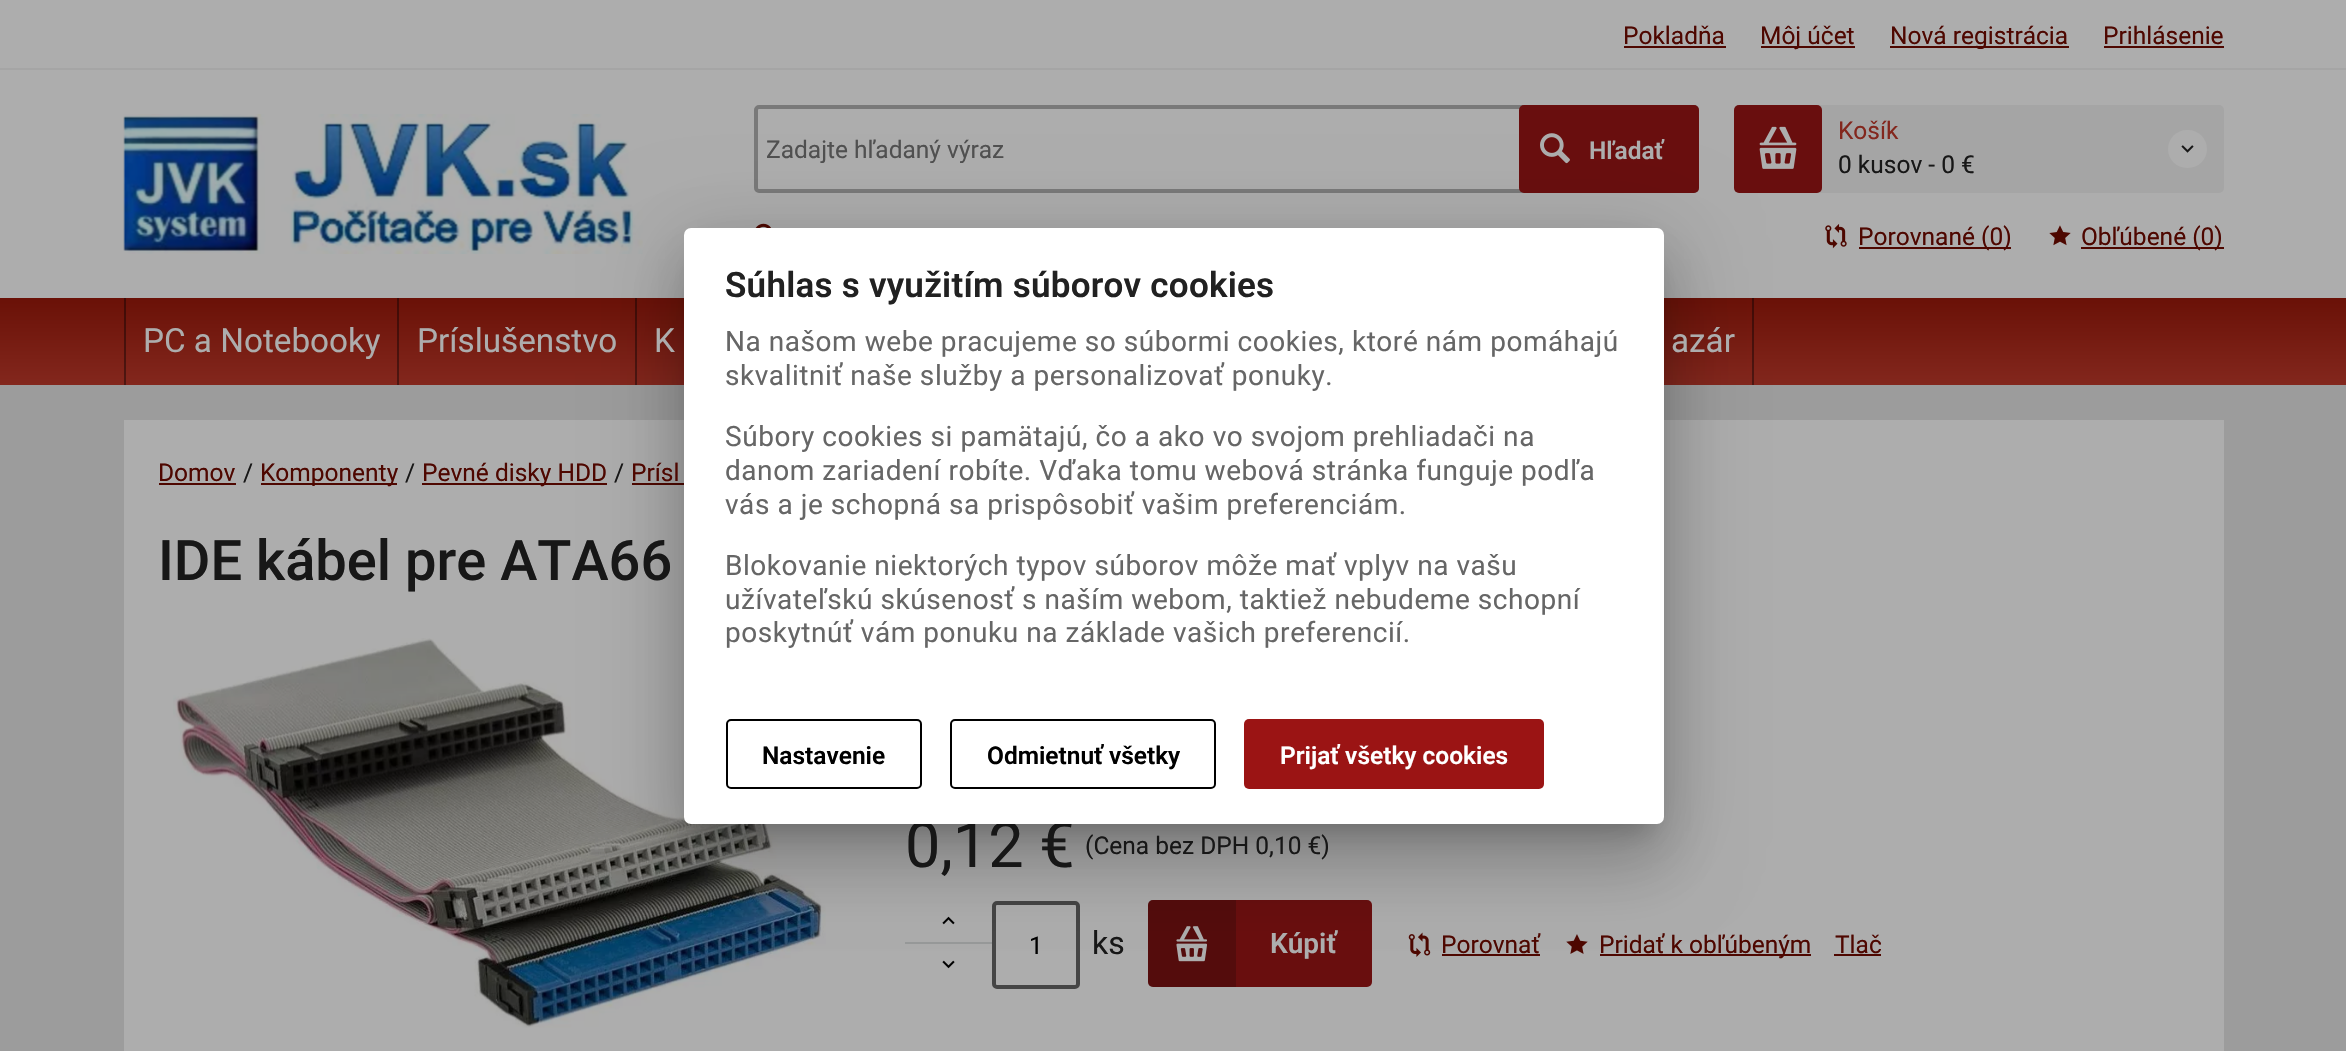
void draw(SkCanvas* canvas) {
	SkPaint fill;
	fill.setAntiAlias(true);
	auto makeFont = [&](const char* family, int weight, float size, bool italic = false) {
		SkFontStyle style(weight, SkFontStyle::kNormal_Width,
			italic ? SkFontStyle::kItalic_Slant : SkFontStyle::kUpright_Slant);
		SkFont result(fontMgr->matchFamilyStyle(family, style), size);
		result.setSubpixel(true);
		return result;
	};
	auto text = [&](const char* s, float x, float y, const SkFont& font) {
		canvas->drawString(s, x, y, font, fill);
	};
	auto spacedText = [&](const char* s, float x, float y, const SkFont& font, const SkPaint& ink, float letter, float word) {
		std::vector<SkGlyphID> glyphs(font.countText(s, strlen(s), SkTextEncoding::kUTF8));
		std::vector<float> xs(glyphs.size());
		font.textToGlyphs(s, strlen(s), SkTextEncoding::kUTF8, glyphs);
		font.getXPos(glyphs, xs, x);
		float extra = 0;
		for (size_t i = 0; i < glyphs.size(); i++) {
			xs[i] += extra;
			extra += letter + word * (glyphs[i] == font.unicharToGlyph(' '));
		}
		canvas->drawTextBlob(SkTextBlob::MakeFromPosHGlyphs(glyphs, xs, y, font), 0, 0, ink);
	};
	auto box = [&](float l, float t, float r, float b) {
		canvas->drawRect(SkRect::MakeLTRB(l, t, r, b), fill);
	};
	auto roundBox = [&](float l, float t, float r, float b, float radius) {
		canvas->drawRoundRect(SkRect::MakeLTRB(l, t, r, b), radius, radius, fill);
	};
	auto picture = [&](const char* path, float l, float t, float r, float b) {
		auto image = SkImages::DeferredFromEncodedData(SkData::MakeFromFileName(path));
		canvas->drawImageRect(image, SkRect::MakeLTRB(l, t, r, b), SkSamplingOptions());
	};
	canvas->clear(0xFF9C9C9C);
	fill.setColor(0xFFADADAD);
	box(0, 0, 2346, 68);
	fill.setColor(0xFFA5A5A5);
	box(0, 68, 2346, 70);
	fill.setColor(0xFF4E0700);
	box(1624, 46, 1726, 48);
	box(1761, 46, 1855, 48);
	box(1890, 46, 2069, 48);
	box(2104, 46, 2224, 48);
	fill.setColor(0xFFADADAD);
	box(0, 70, 2346, 298);
	picture("image0.png", 123, 114, 643, 254);
	fill.setStyle(SkPaint::kStroke_Style);
	fill.setStrokeWidth(4);
	fill.setColor(0xFF797979);
	canvas->drawRoundRect(SkRect::MakeLTRB(756, 107, 1697, 191), 3, 3, fill);
	fill.setStyle(SkPaint::kFill_Style);
	fill.setColor(0xFF690E0E);
	roundBox(1519, 105, 1699, 193, 5);
	picture("image1.png", 1540, 133, 1570, 164);
	fill.setColor(0xFFA5A5A5);
	roundBox(1734, 105, 2224, 193, 5);
	fill.setColor(0xFF690E0E);
	roundBox(1734, 105, 1822, 193, 5);
	picture("image2.png", 1759, 126, 1797, 169);
	fill.setColor(0xFFADADAD);
	roundBox(2168, 130, 2207, 168, 19);
	picture("image3.png", 2181, 145, 2194, 153);
	picture("image4.png", 755, 223, 771, 228);
	picture("image5.png", 1825, 224, 1847, 249);
	fill.setColor(0xFF4E0700);
	box(1859, 247, 2011, 249);
	picture("image6.png", 2049, 225, 2071, 246);
	box(2081, 247, 2224, 249);
	{
		const SkColor colors[] = {0xFF83271D, 0xFF6A1107};
		const float stops[] = {0, 1};
		const SkPoint ends[] = {{1173, 385}, {1173, 298}};
		fill.setShader(SkGradientShader::MakeLinear(ends, colors, stops, 2, SkTileMode::kClamp));
		fill.setAlpha(255);
	}
	box(0, 298, 2346, 385);
	{
		const SkColor colors[] = {0xFF4E1712, 0xFF400A05};
		const float stops[] = {0, 1};
		const SkPoint ends[] = {{1173, 385}, {1173, 298}};
		fill.setShader(SkGradientShader::MakeLinear(ends, colors, stops, 2, SkTileMode::kClamp));
		fill.setAlpha(255);
	}
	box(1752, 298, 1754, 385);
	box(635, 298, 637, 385);
	box(124, 298, 126, 385);
	box(397, 298, 399, 385);
	fill.setShader(nullptr);
	fill.setColor(0xFFADADAD);
	box(124, 420, 2224, 1051);
	fill.setColor(0xFF4E0700);
	box(159, 483, 236, 485);
	box(261, 483, 397, 485);
	box(422, 483, 607, 485);
	box(632, 483, 684, 485);
	picture("image7.png", 173, 638, 826, 1028);
	fill.setColor(0xFF989A9A);
	box(905, 942, 992, 944);
	picture("image8.png", 942, 916, 955, 925);
	picture("image9.png", 942, 960, 955, 969);
	fill.setStyle(SkPaint::kStroke_Style);
	fill.setColor(0xFF454545);
	canvas->drawRoundRect(SkRect::MakeLTRB(994, 903, 1078, 987), 3, 3, fill);
	fill.setStyle(SkPaint::kFill_Style);
	fill.setColor(0xFF690E0E);
	roundBox(1148, 900, 1372, 987, 5);
	fill.setColor(0x33000000);
	canvas->drawPath(SkPathBuilder().moveTo(1153, 900).lineTo(1236, 900).lineTo(1236, 987).lineTo(1153, 987).cubicTo(1150, 987, 1148, 985, 1148, 982).lineTo(1148, 905).cubicTo(1148, 902, 1150, 900, 1153, 900).close().detach(), fill);
	picture("image10.png", 1176, 926, 1207, 962);
	picture("image11.png", 1408, 932, 1431, 957);
	fill.setColor(0xFF4E0700);
	box(1442, 954, 1540, 956);
	picture("image12.png", 1566, 934, 1588, 954);
	box(1600, 954, 1811, 956);
	box(1834, 954, 1881, 956);
	fill.setColor(0x1F000000);
	fill.setMaskFilter(SkMaskFilter::MakeBlur(kNormal_SkBlurStyle, 40));
	canvas->drawRoundRect(SkRect::MakeLTRB(670, 229, 1678, 854), 21, 21, fill);
	fill.setMaskFilter(nullptr);
	fill.setColor(0x24000000);
	fill.setMaskFilter(SkMaskFilter::MakeBlur(kNormal_SkBlurStyle, 33));
	canvas->drawRoundRect(SkRect::MakeLTRB(679, 264, 1670, 872), 12, 12, fill);
	fill.setMaskFilter(nullptr);
	fill.setColor(0x33000000);
	fill.setMaskFilter(SkMaskFilter::MakeBlur(kNormal_SkBlurStyle, 13));
	canvas->drawRect(SkRect::MakeLTRB(697, 259, 1652, 831), fill);
	fill.setMaskFilter(nullptr);
	auto font1 = makeFont("Roboto", 400, 24.5f);
	fill.setColor(0xFF4E0700);
	text("Pokladňa", 1623, 44, font1);
	text("Môj účet", 1760, 44, font1);
	text("Nová registrácia", 1890, 44, font1);
	text("Prihlásenie", 2103, 44, font1);
	canvas->save();
	canvas->clipRect(SkRect::MakeLTRB(767, 135, 1687, 163));
	fill.setColor(0xFF505050);
	text("Zadajte hľadaný výraz", 766, 158, font1);
	canvas->restore();
	auto font2 = makeFont("Roboto", 600, 24.5f);
	fill.setColor(0xFFADADAD);
	text("Hľadať", 1589, 159, font2);
	fill.setColor(0xFF83271D);
	text("Košík", 1838, 139, font1);
	fill.setColor(0xFF171717);
	text("0 kusov - 0 €", 1838, 173, font1);
	fill.setColor(0xFF4E0700);
	text("Porovnané (0)", 1858, 245, font1);
	text("Obľúbené (0)", 2081, 245, font1);
	auto font3 = makeFont("Roboto", 400, 33.25f);
	fill.setColor(0xFFADADAD);
	text("PC a Notebooky", 143, 352, font3);
	text("Príslušenstvo", 417, 352, font3);
	text("K", 654, 352, font3);
	text("azár", 1671, 352, font3);
	fill.setColor(0xFF4E0700);
	text("Domov", 158, 481, font1);
	fill.setColor(0xFF171717);
	text("/", 243, 481, font1);
	fill.setColor(0xFF4E0700);
	text("Komponenty", 260, 481, font1);
	fill.setColor(0xFF171717);
	text("/", 405, 481, font1);
	fill.setColor(0xFF4E0700);
	text("Pevné disky HDD", 422, 481, font1);
	fill.setColor(0xFF171717);
	text("/", 614, 481, font1);
	fill.setColor(0xFF4E0700);
	text("Prísl", 631, 481, font1);
	auto font4 = makeFont("Roboto", 500, 56);
	fill.setColor(0xFF171717);
	text("IDE kábel pre ATA66", 158, 580, font4);
	auto font5 = makeFont("Roboto", 400, 63);
	text("0,12 €", 905, 867, font5);
	text("(Cena bez DPH 0,10 €)", 1085, 854, font1);
	fill.setColor(0xFF000000);
	text("1", 1029, 954, font1);
	auto font6 = makeFont("Roboto", 400, 32);
	fill.setColor(0xFF171717);
	text("ks", 1092, 954, font6);
	auto font7 = makeFont("Roboto", 600, 28);
	fill.setColor(0xFFADADAD);
	text("Kúpiť", 1270, 953, font7);
	fill.setColor(0xFF4E0700);
	text("Porovnať", 1441, 953, font1);
	text("Pridať k obľúbeným", 1599, 953, font1);
	text("Tlač", 1835, 953, font1);
	fill.setColor(0xFFFFFFFF);
	roundBox(684, 228, 1664, 824, 7);
	auto font8 = makeFont("Roboto", 600, 35);
	fill.setColor(0xFF212121);
	spacedText("Súhlas s využitím súborov cookies", 725, 297, font8, fill, 0.25f, 0);
	auto font9 = makeFont("Roboto", 400, 28);
	fill.setColor(0xFF666666);
	spacedText("Na našom webe pracujeme so súbormi cookies, ktoré nám pomáhajú", 725, 351, font9, fill, 0.55f, 0);
	spacedText("skvalitniť naše služby a personalizovať ponuky.", 725, 385, font9, fill, 0.55f, 0);
	spacedText("Súbory cookies si pamätajú, čo a ako vo svojom prehliadači na", 725, 446, font9, fill, 0.55f, 0);
	spacedText("danom zariadení robíte. Vďaka tomu webová stránka funguje podľa", 725, 480, font9, fill, 0.55f, 0);
	spacedText("vás a je schopná sa prispôsobiť vašim preferenciám.", 725, 514, font9, fill, 0.55f, 0);
	spacedText("Blokovanie niektorých typov súborov môže mať vplyv na vašu", 725, 575, font9, fill, 0.55f, 0);
	spacedText("užívateľskú skúsenosť s naším webom, taktiež nebudeme schopní", 725, 609, font9, fill, 0.55f, 0);
	spacedText("poskytnúť vám ponuku na základe vašich preferencií.", 725, 642, font9, fill, 0.55f, 0);
	fill.setStyle(SkPaint::kStroke_Style);
	fill.setStrokeWidth(2);
	fill.setColor(0xFF000000);
	canvas->drawRoundRect(SkRect::MakeLTRB(727, 720, 921, 788), 4, 4, fill);
	fill.setStyle(SkPaint::kFill_Style);
	text("Nastavenie", 762, 764, font2);
	fill.setStyle(SkPaint::kStroke_Style);
	canvas->drawRoundRect(SkRect::MakeLTRB(951, 720, 1215, 788), 4, 4, fill);
	fill.setStyle(SkPaint::kFill_Style);
	text("Odmietnuť všetky", 987, 764, font2);
	fill.setColor(0xFF9B1414);
	roundBox(1244, 719, 1544, 789, 5);
	fill.setColor(0xFFFFFFFF);
	text("Prijať všetky cookies", 1280, 764, font2);
}
